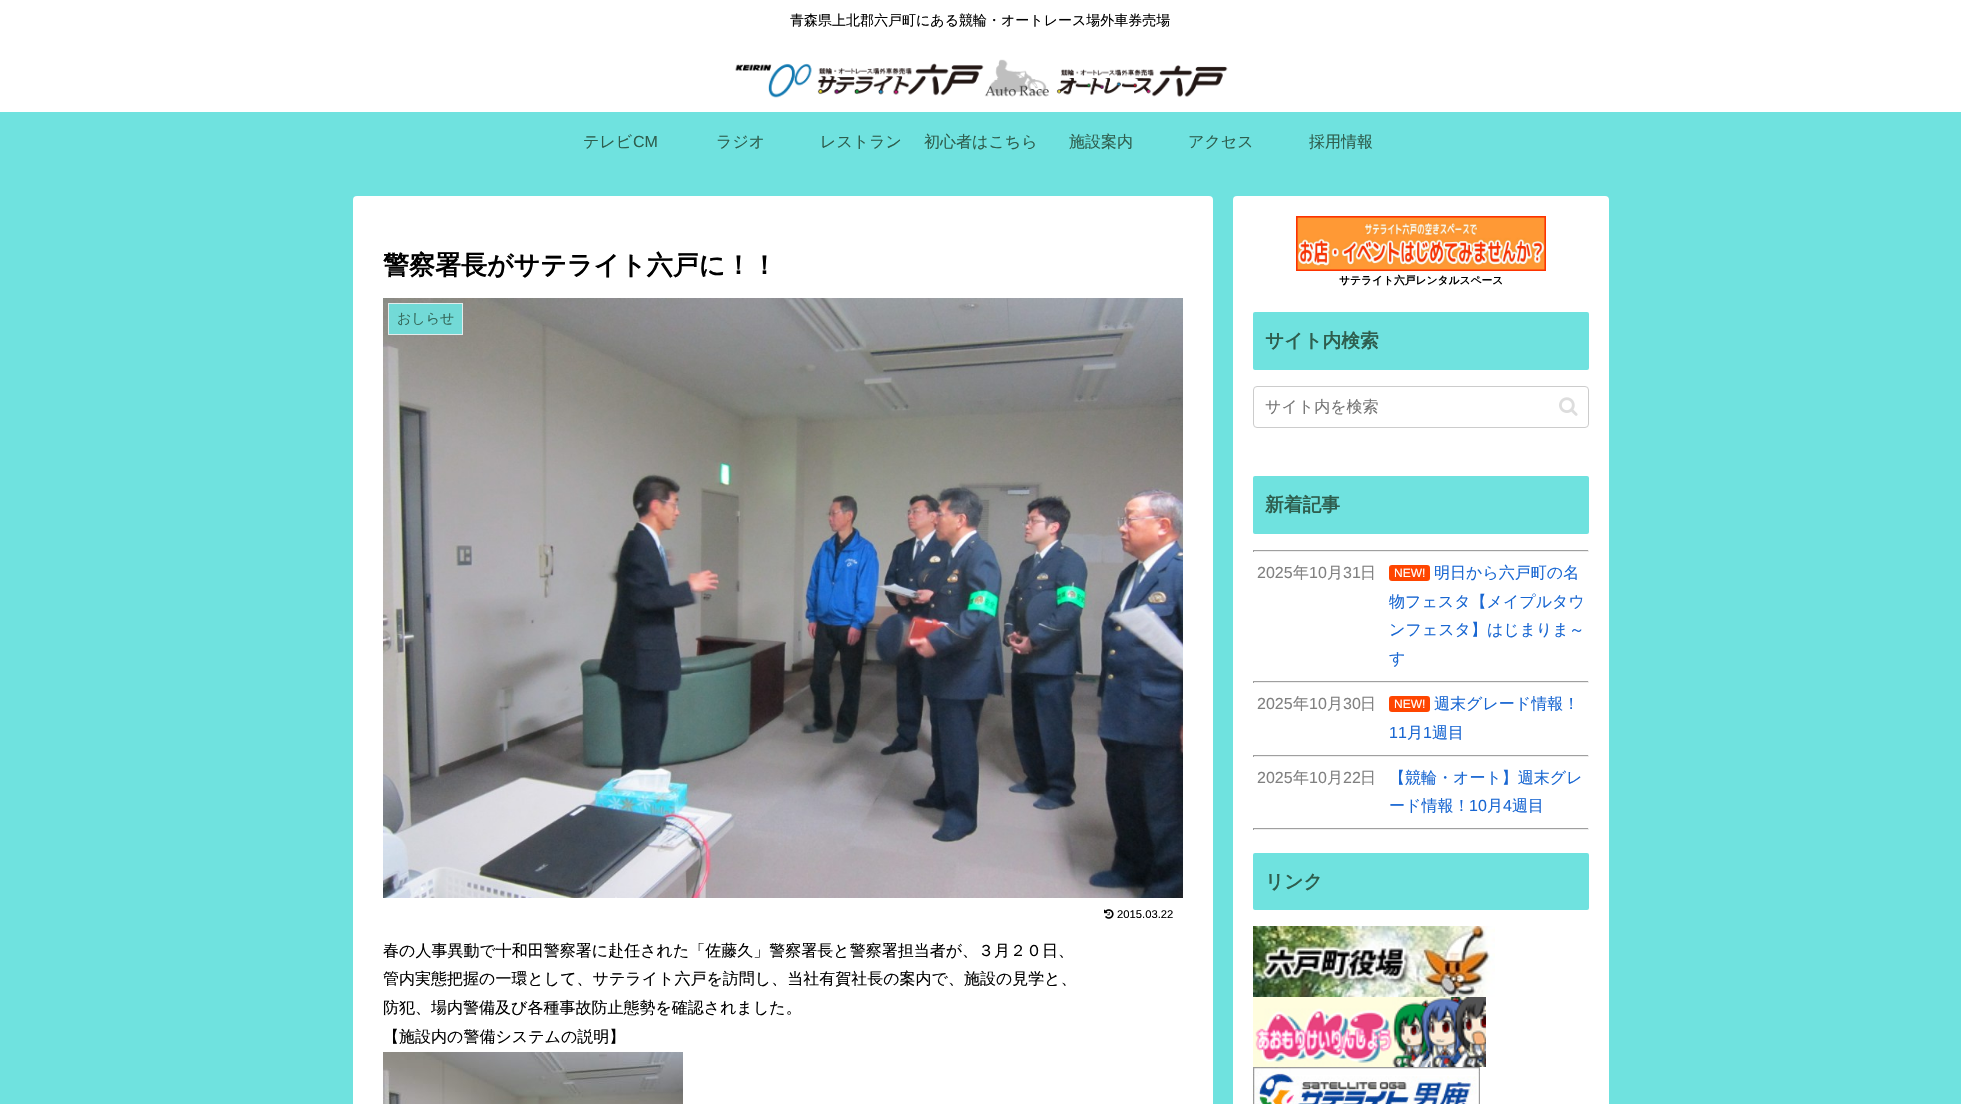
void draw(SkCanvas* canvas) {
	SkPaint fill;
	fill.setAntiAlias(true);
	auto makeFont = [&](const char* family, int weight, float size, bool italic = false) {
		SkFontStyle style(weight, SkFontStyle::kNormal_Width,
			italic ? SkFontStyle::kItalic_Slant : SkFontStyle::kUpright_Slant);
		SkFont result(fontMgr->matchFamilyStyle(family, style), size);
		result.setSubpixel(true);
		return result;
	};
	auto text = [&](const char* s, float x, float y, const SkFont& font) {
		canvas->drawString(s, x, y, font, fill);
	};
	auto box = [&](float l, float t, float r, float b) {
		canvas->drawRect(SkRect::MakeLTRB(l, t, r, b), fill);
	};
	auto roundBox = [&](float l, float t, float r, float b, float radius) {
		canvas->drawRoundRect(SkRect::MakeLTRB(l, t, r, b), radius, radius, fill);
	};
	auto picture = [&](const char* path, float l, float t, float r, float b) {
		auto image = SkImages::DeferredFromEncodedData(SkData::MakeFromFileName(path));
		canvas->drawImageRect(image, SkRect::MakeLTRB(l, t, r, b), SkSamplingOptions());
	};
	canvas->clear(0xFF6FE2DF);
	fill.setColor(0xFFFFFFFF);
	box(0, 0, 1961, 112);
	picture("image0.png", 735, 59, 1228, 98);
	roundBox(353, 196, 1213, 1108, 4);
	picture("image1.png", 383, 298, 1183, 898);
	fill.setColor(0xE66FE2DF);
	canvas->drawRect(SkRect::MakeLTRB(388.5f, 303.5f, 462.5f, 334.5f), fill);
	fill.setStyle(SkPaint::kStroke_Style);
	fill.setStrokeWidth(1);
	fill.setColor(0xFFE2ECEC);
	canvas->drawRect(SkRect::MakeLTRB(388.5f, 303.5f, 462.5f, 334.5f), fill);
	picture("image2.png", 1104, 909, 1114, 919);
	picture("image3.png", 383, 1052, 683, 1104);
	fill.setStyle(SkPaint::kFill_Style);
	fill.setColor(0xFFFFFFFF);
	roundBox(1233, 196, 1609, 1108, 4);
	picture("image4.png", 1296, 216, 1546, 271);
	fill.setColor(0xFF6FE2DF);
	roundBox(1253, 312, 1589, 370, 2);
	fill.setStyle(SkPaint::kStroke_Style);
	fill.setColor(0xFFCCCCCC);
	canvas->drawRoundRect(SkRect::MakeLTRB(1253.5f, 386.5f, 1588.5f, 427.5f), 3.5f, 3.5f, fill);
	picture("image5.png", 1559, 397, 1578, 416);
	fill.setStyle(SkPaint::kFill_Style);
	fill.setColor(0xFF6FE2DF);
	roundBox(1253, 476, 1589, 534, 2);
	fill.setColor(0xFF9F9F9F);
	box(1253, 550, 1589, 551);
	fill.setColor(0xFFEEEEEE);
	box(1588, 550, 1589, 552);
	box(1253, 551, 1589, 552);
	fill.setColor(0xFF9F9F9F);
	box(1253, 550, 1254, 552);
	fill.setColor(0xFFFF4500);
	roundBox(1389, 565, 1430, 581, 3);
	fill.setColor(0xFF9F9F9F);
	box(1253, 681, 1589, 682);
	fill.setColor(0xFFEEEEEE);
	box(1588, 681, 1589, 683);
	box(1253, 682, 1589, 683);
	fill.setColor(0xFF9F9F9F);
	box(1253, 681, 1254, 683);
	fill.setColor(0xFFFF4500);
	roundBox(1389, 696, 1430, 712, 3);
	fill.setColor(0xFF9F9F9F);
	box(1253, 755, 1589, 756);
	fill.setColor(0xFFEEEEEE);
	box(1588, 755, 1589, 757);
	box(1253, 756, 1589, 757);
	fill.setColor(0xFF9F9F9F);
	box(1253, 755, 1254, 757);
	box(1253, 828, 1589, 829);
	fill.setColor(0xFFEEEEEE);
	box(1588, 828, 1589, 830);
	box(1253, 829, 1589, 830);
	fill.setColor(0xFF9F9F9F);
	box(1253, 828, 1254, 830);
	fill.setColor(0xFF6FE2DF);
	roundBox(1253, 853, 1589, 910, 2);
	picture("image6.png", 1253, 926, 1495, 997);
	picture("image7.png", 1253, 997, 1486, 1067);
	picture("image8.png", 1253, 1067, 1480, 1104);
	auto font1 = makeFont("WenQuanYi Zen Hei", 500, 14);
	fill.setColor(0xFF000000);
	text("青森県上北郡六戸町にある競輪・オートレース場外車券売場", 790, 25, font1);
	auto font2 = makeFont("WenQuanYi Zen Hei", 500, 16);
	fill.setColor(0xFF2E5E4E);
	text("テレビ", 583, 147, font2);
	auto font3 = makeFont("Liberation Sans", 400, 16);
	text("CM", 633, 147, font3);
	text("ラジオ", 716, 147, font2);
	text("レストラン", 820, 147, font2);
	text("初心者はこちら", 924, 147, font2);
	text("施設案内", 1069, 147, font2);
	text("アクセス", 1188, 147, font2);
	text("採用情報", 1309, 147, font2);
	auto font4 = makeFont("WenQuanYi Zen Hei", 700, 26);
	fill.setColor(0xFF000000);
	text("警察署長がサテライト六戸に！！", 383, 274, font4);
	fill.setColor(0xFF356A5C);
	text("おしらせ", 397, 323, font1);
	auto font5 = makeFont("Liberation Sans", 400, 11.25f);
	fill.setColor(0xFF000000);
	text("2015.03.22", 1117, 918, font5);
	text("春の人事異動で十和田警察署に赴任された「佐藤久」警察署長と警察署担当者が、３月２０日、", 383, 956, font2);
	text("管内実態把握の一環として、サテライト六戸を訪問し、当社有賀社長の案内で、施設の見学と、", 383, 984, font2);
	text("防犯、場内警備及び各種事故防止態勢を確認されました。", 383, 1013, font2);
	text("【施設内の警備システムの説明】", 383, 1042, font2);
	auto font6 = makeFont("WenQuanYi Zen Hei", 700, 10.75f);
	text("サテライト六戸レンタルスペース", 1339, 284, font6);
	auto font7 = makeFont("WenQuanYi Zen Hei", 700, 18.75f);
	fill.setColor(0xFF2E5E4E);
	text("サイト内検索", 1265, 347, font7);
	fill.setColor(0xFF757575);
	text("サイト内を検索", 1265, 412, font2);
	fill.setColor(0xFF2E5E4E);
	text("新着記事", 1265, 511, font7);
	fill.setColor(0xFF808080);
	text("2025", 1257, 578, font3);
	text("年", 1293, 578, font2);
	text("10", 1309, 578, font3);
	text("月", 1327, 578, font2);
	text("31", 1343, 578, font3);
	text("日", 1360, 578, font2);
	auto font8 = makeFont("Liberation Sans", 400, 12);
	fill.setColor(0xFFFFFFFF);
	text("NEW!", 1394, 577, font8);
	fill.setColor(0xFF1967D2);
	text("明日から六戸町の名", 1434, 578, font2);
	text("物フェスタ【メイプルタウ", 1389, 607, font2);
	text("ンフェスタ】はじまりま～", 1389, 635, font2);
	text("す", 1389, 664, font2);
	fill.setColor(0xFF808080);
	text("2025", 1257, 709, font3);
	text("年", 1293, 709, font2);
	text("10", 1309, 709, font3);
	text("月", 1327, 709, font2);
	text("30", 1343, 709, font3);
	text("日", 1360, 709, font2);
	fill.setColor(0xFFFFFFFF);
	text("NEW!", 1394, 708, font8);
	fill.setColor(0xFF1967D2);
	text("週末グレード情報！", 1434, 709, font2);
	text("11", 1389, 738, font3);
	text("月", 1407, 738, font2);
	text("1", 1423, 738, font3);
	text("週目", 1432, 738, font2);
	fill.setColor(0xFF808080);
	text("2025", 1257, 783, font3);
	text("年", 1293, 783, font2);
	text("10", 1309, 783, font3);
	text("月", 1327, 783, font2);
	text("22", 1343, 783, font3);
	text("日", 1360, 783, font2);
	fill.setColor(0xFF1967D2);
	text("【競輪・オート】週末グレ", 1389, 783, font2);
	text("ード情報！", 1389, 811, font2);
	text("10", 1469, 811, font3);
	text("月", 1487, 811, font2);
	text("4", 1503, 811, font3);
	text("週目", 1512, 811, font2);
	fill.setColor(0xFF2E5E4E);
	text("リンク", 1265, 888, font7);
}
